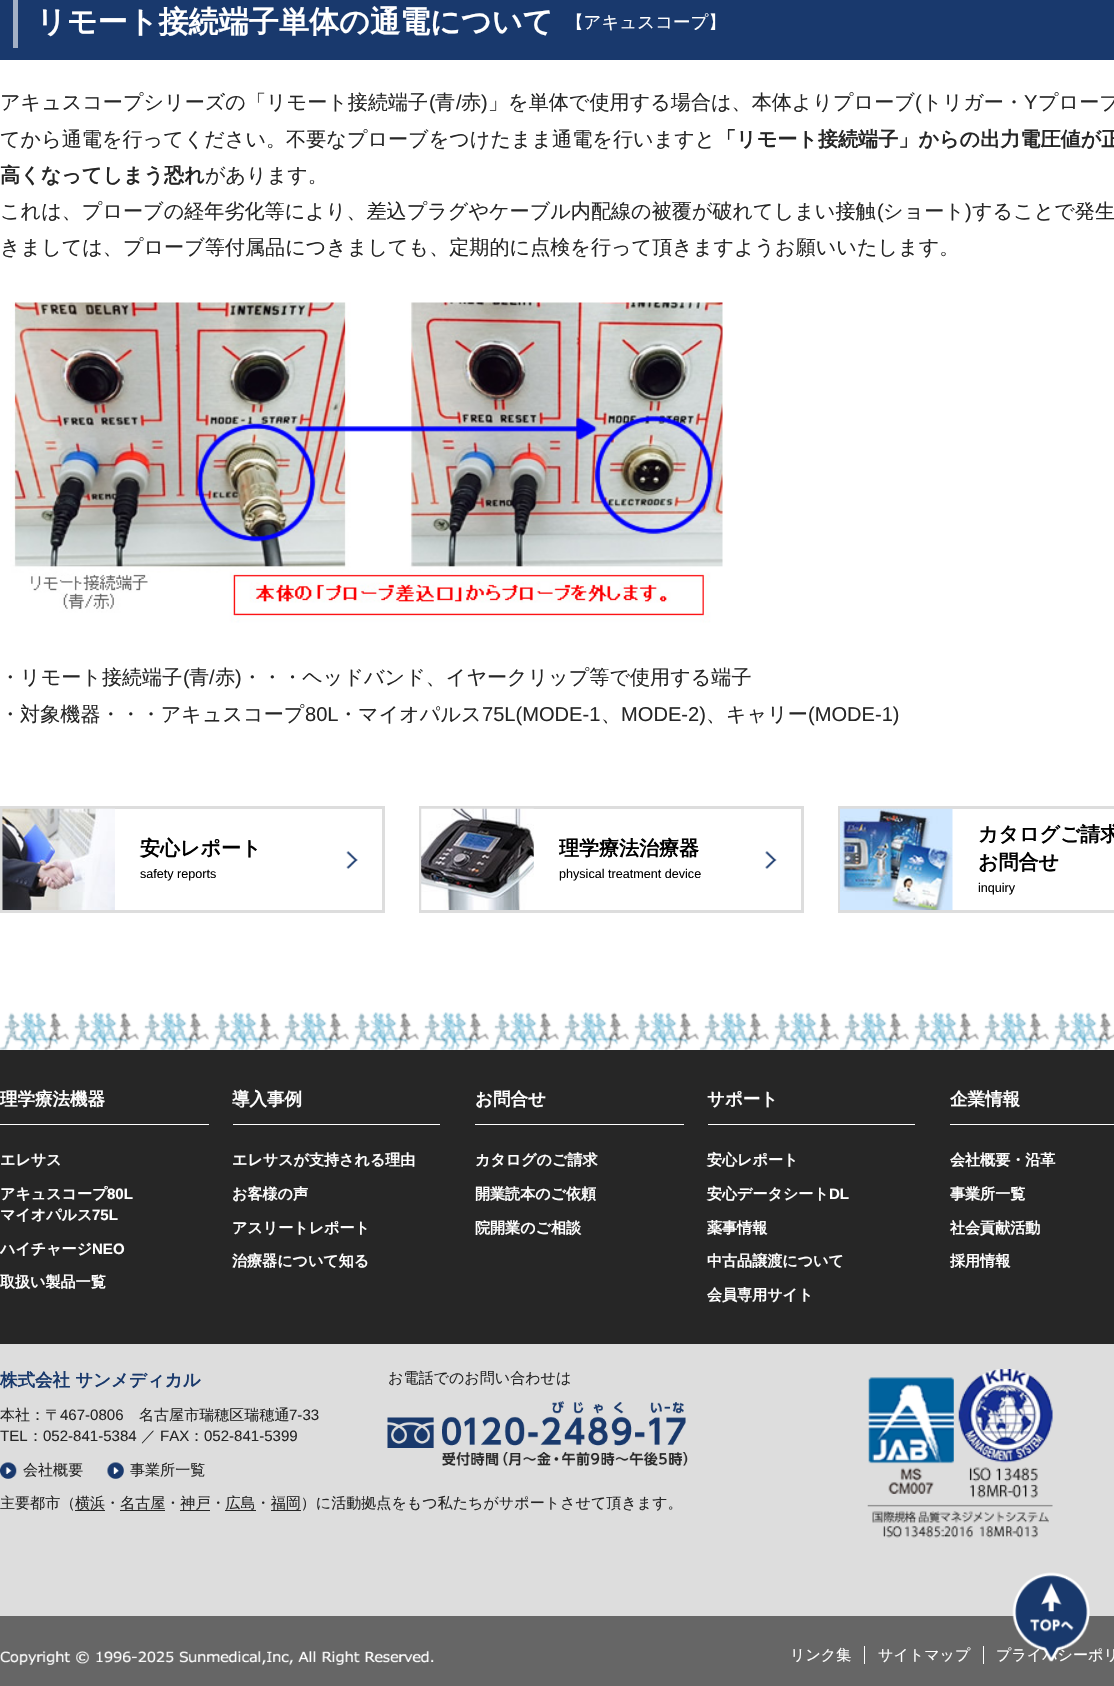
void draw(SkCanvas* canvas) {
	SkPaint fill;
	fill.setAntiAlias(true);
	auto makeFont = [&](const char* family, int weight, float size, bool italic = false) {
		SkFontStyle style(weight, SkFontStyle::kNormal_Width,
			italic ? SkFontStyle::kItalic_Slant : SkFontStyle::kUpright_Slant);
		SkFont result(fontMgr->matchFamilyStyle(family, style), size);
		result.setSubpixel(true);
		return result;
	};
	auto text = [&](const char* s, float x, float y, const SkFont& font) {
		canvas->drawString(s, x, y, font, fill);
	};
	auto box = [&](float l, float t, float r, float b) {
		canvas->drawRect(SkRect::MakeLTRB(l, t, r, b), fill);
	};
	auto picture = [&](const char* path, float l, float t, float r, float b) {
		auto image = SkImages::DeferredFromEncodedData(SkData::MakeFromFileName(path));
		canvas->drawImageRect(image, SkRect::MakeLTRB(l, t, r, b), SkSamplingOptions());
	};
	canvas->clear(0xFFFFFFFF);
	fill.setColor(0xFF19396D);
	box(0, 0, 1114, 60);
	fill.setColor(0xFFA3B0C5);
	box(13, 0, 18, 48);
	picture("image0.png", 10, 302, 723, 623);
	picture("image1.png", 346, 851, 358, 869);
	fill.setStyle(SkPaint::kStroke_Style);
	fill.setStrokeWidth(3);
	fill.setColor(0xFFDDDDDD);
	canvas->drawRect(SkRect::MakeLTRB(1.5f, 807.5f, 383.5f, 911.5f), fill);
	picture("image2.png", 2, 808, 115, 910);
	picture("image3.png", 765, 851, 777, 869);
	canvas->drawRect(SkRect::MakeLTRB(420.5f, 807.5f, 802.5f, 911.5f), fill);
	picture("image4.png", 421, 808, 534, 910);
	canvas->drawRect(SkRect::MakeLTRB(839.5f, 807.5f, 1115.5f, 911.5f), fill);
	picture("image5.png", 840, 808, 953, 910);
	picture("image6.png", 0, 1012, 1114, 1050);
	fill.setStyle(SkPaint::kFill_Style);
	fill.setColor(0xFF262626);
	box(0, 1050, 1114, 1344);
	fill.setColor(0xFFFFFFFF);
	box(0, 1124, 209, 1125);
	box(233, 1124, 440, 1125);
	box(475, 1124, 684, 1125);
	box(708, 1124, 915, 1125);
	box(950, 1124, 1114, 1125);
	fill.setColor(0xFFDDDDDD);
	box(0, 1344, 1114, 1616);
	picture("image7.png", 0, 1462, 17, 1479);
	picture("image8.png", 107, 1462, 124, 1479);
	picture("image9.png", 387, 1401, 688, 1466);
	fill.setColor(0xFF262626);
	box(75, 1510, 105, 1511);
	box(120, 1510, 165, 1511);
	box(180, 1510, 210, 1511);
	box(225, 1510, 256, 1511);
	box(271, 1510, 301, 1511);
	picture("image10.png", 867, 1369, 1053, 1538);
	fill.setColor(0xFF666666);
	box(0, 1616, 1114, 1686);
	picture("image11.png", 0, 1651, 434, 1665);
	fill.setColor(0xFFFFFFFF);
	box(864, 1646, 865, 1664);
	box(983, 1646, 984, 1664);
	auto font1 = makeFont("WenQuanYi Zen Hei", 700, 30.1f);
	text("リモート接続端子単体の通電について", 36, 32, font1);
	auto font2 = makeFont("WenQuanYi Zen Hei", 500, 17.5f);
	text("【アキュスコープ】", 566, 28, font2);
	auto font3 = makeFont("WenQuanYi Zen Hei", 500, 20.1f);
	fill.setColor(0xFF262626);
	text("アキュスコープシリーズの「リモート接続端子", 0, 109, font3);
	auto font4 = makeFont("Liberation Sans", 400, 20.1f);
	text("(", 429, 109, font4);
	text("青", 435, 109, font3);
	text("/", 456, 109, font4);
	text("赤", 461, 109, font3);
	text(")", 481, 109, font4);
	text("」を単体で使用する場合は、本体よりプローブ", 488, 109, font3);
	text("(", 915, 109, font4);
	text("トリガー・", 922, 109, font3);
	text("Y", 1024, 109, font4);
	text("プローブ", 1038, 109, font3);
	text("てから通電を行ってください。不要なプローブをつけたまま通電を行いますと", 0, 146, font3);
	auto font5 = makeFont("WenQuanYi Zen Hei", 700, 20.1f);
	text("「リモート接続端子」からの出力電圧値が正", 716, 146, font5);
	text("高くなってしまう恐れ", 0, 182, font5);
	text("があります。", 205, 182, font3);
	text("これは、プローブの経年劣化等により、差込プラグやケーブル内配線の被覆が破れてしまい接触", 0, 218, font3);
	text("(", 877, 218, font4);
	text("ショート", 883, 218, font3);
	text(")", 965, 218, font4);
	text("することで発生", 972, 218, font3);
	text("きましては、プローブ等付属品につきましても、定期的に点検を行って頂きますようお願いいたします。", 0, 254, font3);
	text("・リモート接続端子", 0, 684, font3);
	text("(", 183, 684, font4);
	text("青", 189, 684, font3);
	text("/", 209, 684, font4);
	text("赤", 215, 684, font3);
	text(")", 235, 684, font4);
	text("・・・ヘッドバンド、イヤークリップ等で使用する端子", 242, 684, font3);
	text("・対象機器・・・アキュスコープ", 0, 721, font3);
	text("80L", 305, 721, font4);
	text("・マイオパルス", 338, 721, font3);
	text("75L(MODE-1", 482, 721, font4);
	text("、", 601, 721, font3);
	text("MODE-2)", 621, 721, font4);
	text("、キャリー", 706, 721, font3);
	text("(MODE-1)", 808, 721, font4);
	auto font6 = makeFont("WenQuanYi Zen Hei", 700, 20);
	fill.setColor(0xFF000000);
	text("安心レポート", 140, 855, font6);
	auto font7 = makeFont("Liberation Sans", 400, 12.6f);
	text("safety reports", 140, 878, font7);
	text("理学療法治療器", 559, 855, font6);
	text("physical treatment device", 559, 878, font7);
	text("カタログご請求", 978, 841, font6);
	text("お問合せ", 978, 869, font6);
	text("inquiry", 978, 892, font7);
	auto font8 = makeFont("WenQuanYi Zen Hei", 700, 17.5f);
	fill.setColor(0xFFFFFFFF);
	text("理学療法機器", 0, 1105, font8);
	auto font9 = makeFont("WenQuanYi Zen Hei", 700, 15.05f);
	text("エレサス", 0, 1165, font9);
	text("アキュスコープ", 0, 1199, font9);
	auto font10 = makeFont("Liberation Sans", 700, 15.05f);
	text("80L", 107, 1199, font10);
	text("マイオパルス", 0, 1220, font9);
	text("75L", 92, 1220, font10);
	text("ハイチャージ", 0, 1254, font9);
	text("NEO", 92, 1254, font10);
	text("取扱い製品一覧", 0, 1287, font9);
	text("導入事例", 232, 1105, font8);
	text("エレサスが支持される理由", 232, 1165, font9);
	text("お客様の声", 232, 1199, font9);
	text("アスリートレポート", 232, 1233, font9);
	text("治療器について知る", 232, 1266, font9);
	text("お問合せ", 475, 1105, font8);
	text("カタログのご請求", 475, 1165, font9);
	text("開業読本のご依頼", 475, 1199, font9);
	text("院開業のご相談", 475, 1233, font9);
	text("サポート", 707, 1105, font8);
	text("安心レポート", 707, 1165, font9);
	text("安心データシート", 707, 1199, font9);
	text("DL", 829, 1199, font10);
	text("薬事情報", 707, 1233, font9);
	text("中古品譲渡について", 707, 1266, font9);
	text("会員専用サイト", 707, 1300, font9);
	text("企業情報", 950, 1105, font8);
	text("会社概要・沿革", 950, 1165, font9);
	text("事業所一覧", 950, 1199, font9);
	text("社会貢献活動", 950, 1233, font9);
	text("採用情報", 950, 1266, font9);
	fill.setColor(0xFF19396C);
	text("株式会社 サンメディカル", 0, 1386, font8);
	auto font11 = makeFont("WenQuanYi Zen Hei", 500, 15.05f);
	fill.setColor(0xFF262626);
	text("本社：〒", 0, 1420, font11);
	auto font12 = makeFont("Liberation Sans", 400, 15.05f);
	text("467-0806", 60, 1420, font12);
	text("名古屋市瑞穂区瑞穂通", 139, 1420, font11);
	text("7-33", 289, 1420, font12);
	text("TEL", 0, 1441, font12);
	text("：", 28, 1441, font11);
	text("052-841-5384", 43, 1441, font12);
	text("／", 141, 1441, font11);
	text("FAX", 160, 1441, font12);
	text("：", 189, 1441, font11);
	text("052-841-5399", 204, 1441, font12);
	text("会社概要", 23, 1475, font11);
	text("事業所一覧", 130, 1475, font11);
	text("お電話でのお問い合わせは", 388, 1383, font11);
	text("主要都市（", 0, 1508, font11);
	text("横浜・名古屋・神戸・広島・福岡）に活動拠点をもつ私たちがサポートさせて頂きます。", 75, 1508, font11);
	fill.setColor(0xFFFFFFFF);
	text("リンク集", 790, 1660, font11);
	text("サイトマップ", 878, 1660, font11);
	text("プライバシーポリ", 996, 1660, font11);
	picture("image12.png", 1012, 1572, 1090, 1662);
}
